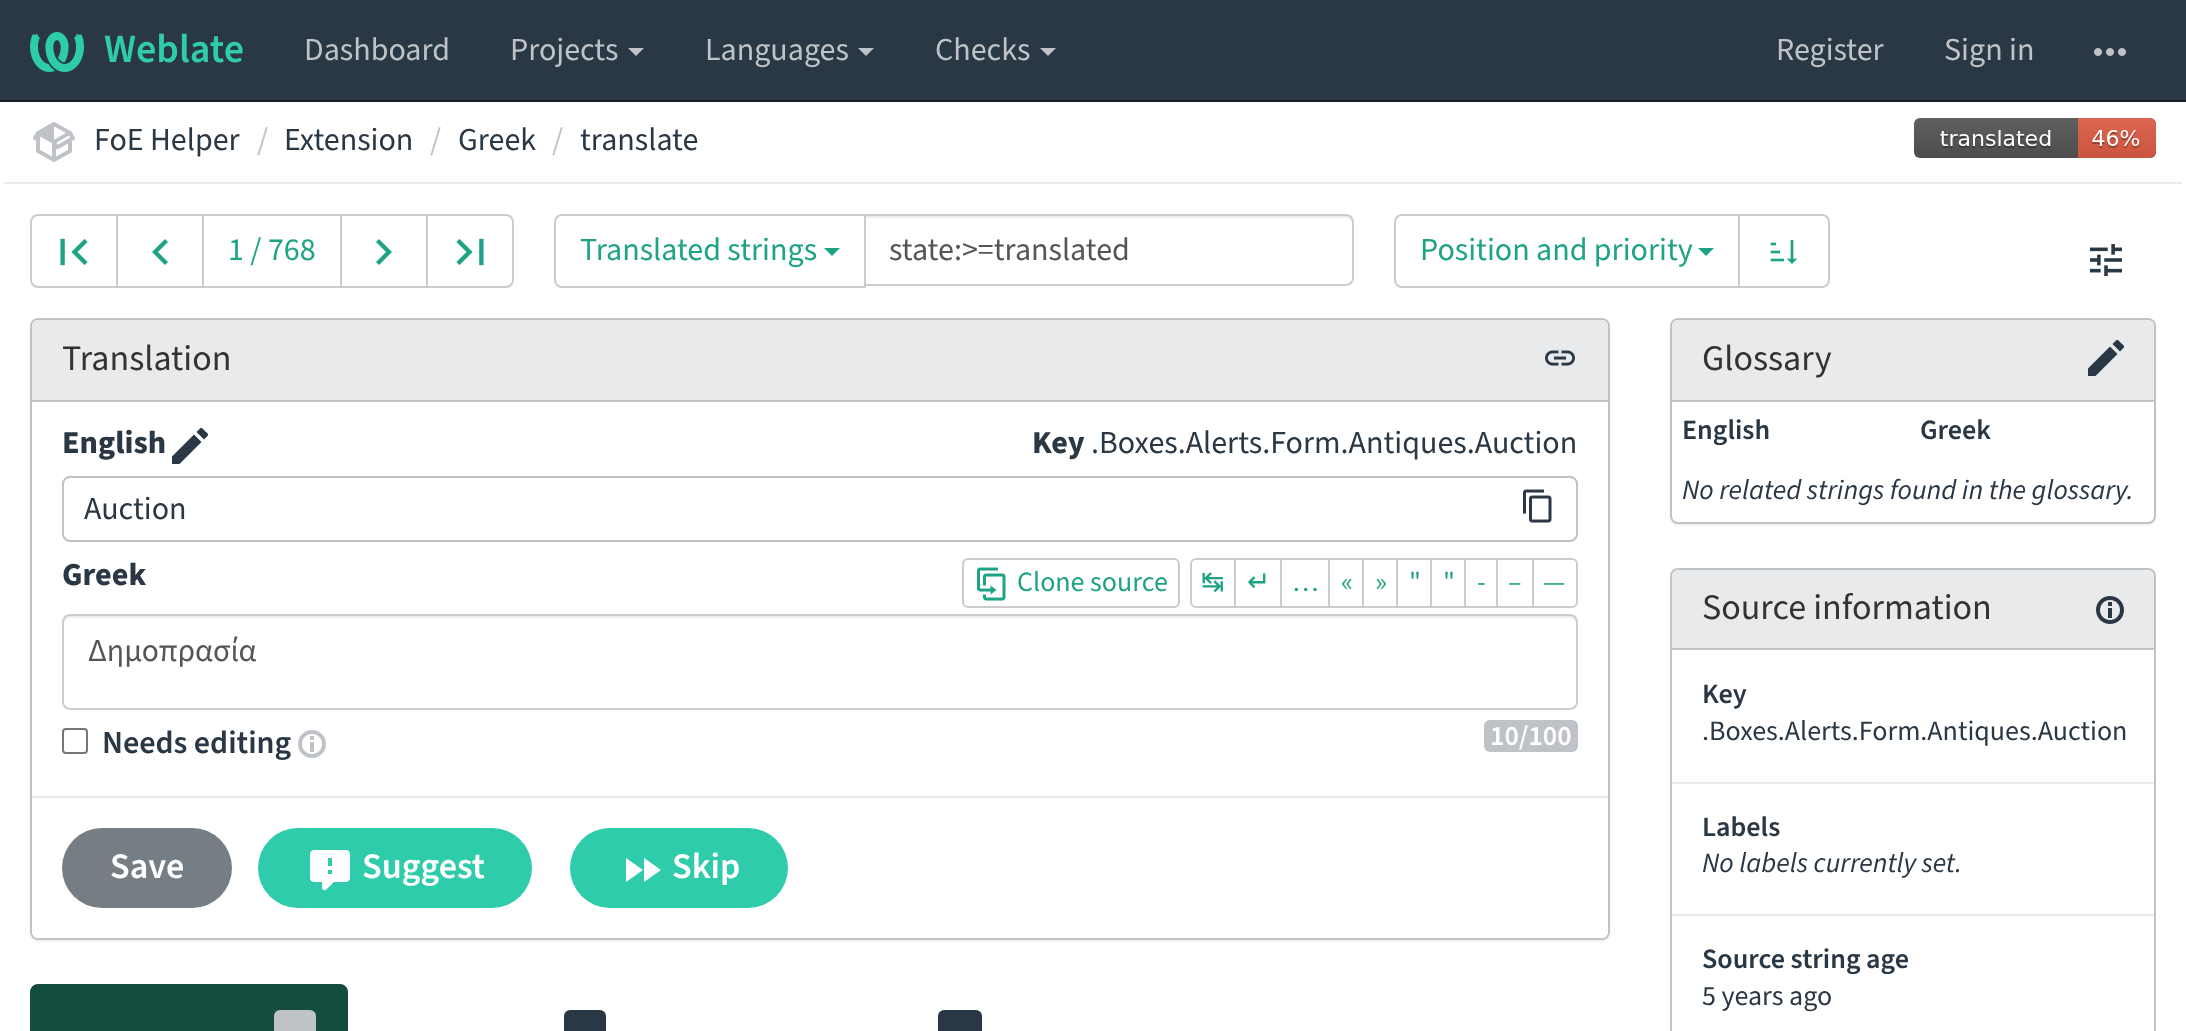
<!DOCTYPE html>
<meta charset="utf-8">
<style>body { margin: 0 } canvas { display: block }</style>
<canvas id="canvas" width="2186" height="1031"></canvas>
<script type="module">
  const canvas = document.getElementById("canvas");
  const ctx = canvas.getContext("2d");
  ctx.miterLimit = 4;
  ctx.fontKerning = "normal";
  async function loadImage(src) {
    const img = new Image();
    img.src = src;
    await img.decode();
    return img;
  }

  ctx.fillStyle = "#ffffff";
  ctx.fillRect(0, 0, 2186, 1031);
  ctx.fillStyle = "#2a3744";
  ctx.fillRect(0, 0, 2186, 100);
  ctx.fillStyle = "#171d24";
  ctx.fillRect(0, 100, 2186, 2);
  ctx.drawImage(await loadImage("img1.png"), 30, 32, 54, 40);
  ctx.font = "600 40px Source Sans Pro";
  ctx.fillStyle = "#2eccaa";
  ctx.fillText("Weblate", 104, 62);
  ctx.font = "32px Source Sans Pro";
  ctx.fillStyle = "#bfc3c7";
  ctx.fillText("Dashboard", 304, 60);
  ctx.fillText("Projects", 510, 60);
  ctx.beginPath();
  ctx.moveTo(628, 48);
  ctx.lineTo(644, 48);
  ctx.lineTo(636, 56);
  ctx.closePath();
  ctx.fill();
  ctx.fillText("Languages", 705, 60);
  ctx.beginPath();
  ctx.moveTo(858, 48);
  ctx.lineTo(874, 48);
  ctx.lineTo(866, 56);
  ctx.closePath();
  ctx.fill();
  ctx.fillText("Checks", 935, 60);
  ctx.beginPath();
  ctx.moveTo(1040, 48);
  ctx.lineTo(1056, 48);
  ctx.lineTo(1048, 56);
  ctx.closePath();
  ctx.fill();
  ctx.fillText("Register", 1776, 60);
  ctx.fillText("Sign in", 1944, 60);
  ctx.drawImage(await loadImage("img2.png"), 2094, 48, 32, 8);
  ctx.fillStyle = "#e9eaec";
  ctx.fillRect(4, 182, 2178, 2);
  ctx.drawImage(await loadImage("img3.png"), 33, 122, 42, 40);
  ctx.fillStyle = "#2a3744";
  ctx.fillText("FoE Helper", 94, 150);
  ctx.fillStyle = "#bfc3c7";
  ctx.fillText("/", 257, 150);
  ctx.fillStyle = "#2a3744";
  ctx.fillText("Extension", 284, 150);
  ctx.fillStyle = "#bfc3c7";
  ctx.fillText("/", 430, 150);
  ctx.fillStyle = "#2a3744";
  ctx.fillText("Greek", 458, 150);
  ctx.fillStyle = "#bfc3c7";
  ctx.fillText("/", 552, 150);
  ctx.fillStyle = "#2a3744";
  ctx.fillText("translate", 580, 150);
  ctx.drawImage(await loadImage("img4.png"), 1914, 118, 242, 40);
  ctx.beginPath();
  ctx.roundRect(31, 215, 86, 72, [7, 0, 0, 7]);
  ctx.strokeStyle = "#cccccc";
  ctx.lineWidth = 2;
  ctx.stroke();
  ctx.drawImage(await loadImage("img5.png"), 60, 238, 28, 28);
  ctx.strokeRect(117, 215, 86, 72);
  ctx.fillStyle = "#1fa385";
  ctx.beginPath();
  ctx.moveTo(168, 262);
  ctx.lineTo(158, 252);
  ctx.lineTo(168, 242);
  ctx.lineTo(165, 239);
  ctx.lineTo(152, 252);
  ctx.lineTo(165, 265);
  ctx.lineTo(168, 262);
  ctx.fill();
  ctx.strokeRect(203, 215, 138, 72);
  ctx.fillText("1 / 768", 228, 260);
  ctx.strokeRect(341, 215, 86, 72);
  ctx.beginPath();
  ctx.moveTo(376, 242);
  ctx.lineTo(386, 252);
  ctx.lineTo(376, 262);
  ctx.lineTo(379, 265);
  ctx.lineTo(392, 252);
  ctx.lineTo(379, 239);
  ctx.lineTo(376, 242);
  ctx.fill();
  ctx.fillStyle = "#ffffff";
  ctx.beginPath();
  ctx.roundRect(427, 215, 86, 72, [0, 7, 7, 0]);
  ctx.fill();
  ctx.stroke();
  ctx.drawImage(await loadImage("img6.png"), 456, 238, 28, 28);
  ctx.beginPath();
  ctx.roundRect(555, 215, 310, 72, [7, 0, 0, 7]);
  ctx.stroke();
  ctx.fillStyle = "#1fa385";
  ctx.fillText("Translated strings", 580, 260);
  ctx.beginPath();
  ctx.moveTo(824, 248);
  ctx.lineTo(840, 248);
  ctx.lineTo(832, 256);
  ctx.closePath();
  ctx.fill();
  ctx.fillStyle = "#ffffff";
  ctx.beginPath();
  ctx.roundRect(864, 214, 490, 72, [0, 8, 8, 0]);
  ctx.fill();
  ctx.fillStyle = "#ececec";
  ctx.beginPath();
  ctx.moveTo(866, 218);
  ctx.lineTo(1346, 218);
  ctx.bezierCurveTo(1349, 218, 1352, 221, 1352, 224);
  ctx.bezierCurveTo(1352, 220, 1351, 216, 1346, 216);
  ctx.lineTo(866, 216);
  ctx.closePath();
  ctx.fill();
  ctx.beginPath();
  ctx.roundRect(865, 215, 488, 70, [0, 7, 7, 0]);
  ctx.stroke();
  ctx.fillStyle = "#555555";
  ctx.fillText("state:>=translated", 889, 260);
  ctx.beginPath();
  ctx.roundRect(1395, 215, 344, 72, [7, 0, 0, 7]);
  ctx.stroke();
  ctx.fillStyle = "#1fa385";
  ctx.fillText("Position and priority", 1420, 260);
  ctx.beginPath();
  ctx.moveTo(1698, 248);
  ctx.lineTo(1714, 248);
  ctx.lineTo(1706, 256);
  ctx.closePath();
  ctx.fill();
  ctx.fillStyle = "#ffffff";
  ctx.beginPath();
  ctx.roundRect(1739, 215, 90, 72, [0, 7, 7, 0]);
  ctx.fill();
  ctx.stroke();
  ctx.drawImage(await loadImage("img7.png"), 1770, 240, 28, 24);
  ctx.drawImage(await loadImage("img8.png"), 2090, 244, 32, 32);
  ctx.fillStyle = "rgba(0, 0, 0, 0.05)";
  ctx.filter = "blur(1px)";
  ctx.beginPath();
  ctx.roundRect(30, 320, 1580, 622, 8);
  ctx.fill();
  ctx.filter = "none";
  ctx.fillStyle = "#ffffff";
  ctx.beginPath();
  ctx.roundRect(31, 319, 1578, 620, 7);
  ctx.fill();
  ctx.strokeStyle = "#bfc3c7";
  ctx.stroke();
  ctx.fillStyle = "#e9eaec";
  ctx.beginPath();
  ctx.roundRect(32, 320, 1576, 82, [6, 6, 0, 0]);
  ctx.fill();
  ctx.fillStyle = "#bfc3c7";
  ctx.fillRect(32, 400, 1576, 2);
  ctx.font = "36px Source Sans Pro";
  ctx.fillStyle = "#333333";
  ctx.fillText("Translation", 62, 370);
  ctx.drawImage(await loadImage("img9.png"), 1545, 350, 30, 16);
  ctx.font = "bold 32px Source Sans Pro";
  ctx.fillStyle = "#2a3744";
  ctx.fillText("English", 62, 453);
  ctx.beginPath();
  ctx.moveTo(172, 456.5);
  ctx.lineTo(172, 464);
  ctx.lineTo(179.5, 464);
  ctx.lineTo(201.5, 442);
  ctx.lineTo(194, 434.5);
  ctx.closePath();
  ctx.moveTo(207.5, 436);
  ctx.bezierCurveTo(209.5, 434, 206, 432, 205, 431);
  ctx.bezierCurveTo(204, 430, 202.5, 427.5, 200.5, 428);
  ctx.lineTo(196.5, 432);
  ctx.lineTo(204, 439.5);
  ctx.closePath();
  ctx.fill();
  ctx.fillText("Key", 1032, 453);
  ctx.font = "32px Source Sans Pro";
  ctx.fillText(".Boxes.Alerts.Form.Antiques.Auction", 1091, 453);
  ctx.beginPath();
  ctx.roundRect(63, 477, 1514, 64, 7);
  ctx.stroke();
  ctx.fillText("Auction", 84, 519);
  ctx.drawImage(await loadImage("img10.png"), 1523, 489, 29, 34);
  ctx.font = "bold 32px Source Sans Pro";
  ctx.fillText("Greek", 62, 585);
  ctx.beginPath();
  ctx.roundRect(963, 559, 216, 48, 5);
  ctx.strokeStyle = "#cccccc";
  ctx.stroke();
  ctx.drawImage(await loadImage("img11.png"), 977, 567, 29, 34);
  ctx.font = "28px Source Sans Pro";
  ctx.fillStyle = "#1fa385";
  ctx.fillText("Clone source", 1017, 591);
  ctx.beginPath();
  ctx.roundRect(1191, 559, 44, 48, [5, 0, 0, 5]);
  ctx.stroke();
  ctx.font = "28px DejaVu Sans";
  ctx.fillText("↹", 1201, 591);
  ctx.strokeRect(1235, 559, 46, 48);
  ctx.fillText("↵", 1247, 591);
  ctx.strokeRect(1281, 559, 48, 48);
  ctx.strokeRect(1329, 559, 34, 48);
  ctx.font = "28px Source Sans Pro";
  ctx.fillText("«", 1341, 591);
  ctx.strokeRect(1363, 559, 34, 48);
  ctx.fillText("»", 1375, 591);
  ctx.strokeRect(1397, 559, 34, 48);
  ctx.fillText("\"", 1409, 591);
  ctx.strokeRect(1431, 559, 34, 48);
  ctx.fillText("\"", 1443, 591);
  ctx.strokeRect(1465, 559, 32, 48);
  ctx.fillText("-", 1477, 591);
  ctx.strokeRect(1497, 559, 36, 48);
  ctx.fillText("–", 1508, 591);
  ctx.fillStyle = "#ffffff";
  ctx.beginPath();
  ctx.roundRect(1533, 559, 44, 48, [0, 5, 5, 0]);
  ctx.fill();
  ctx.stroke();
  ctx.fillStyle = "#1fa385";
  ctx.fillText("—", 1543, 591);
  ctx.fillText("…", 1292, 591);
  ctx.fillStyle = "#ececec";
  ctx.beginPath();
  ctx.moveTo(70, 618);
  ctx.lineTo(1570, 618);
  ctx.bezierCurveTo(1573, 618, 1576, 621, 1576, 624);
  ctx.bezierCurveTo(1576, 620, 1575, 616, 1570, 616);
  ctx.lineTo(70, 616);
  ctx.bezierCurveTo(65, 616, 64, 620, 64, 624);
  ctx.bezierCurveTo(64, 621, 67, 618, 70, 618);
  ctx.closePath();
  ctx.fill();
  ctx.beginPath();
  ctx.roundRect(63, 615, 1514, 94, 7);
  ctx.stroke();
  ctx.font = "32px Source Sans Pro";
  ctx.fillStyle = "#555555";
  ctx.fillText("Δημοπρασία", 88, 661);
  ctx.fillStyle = "#bfc3c7";
  ctx.beginPath();
  ctx.roundRect(1484, 720, 94, 32, 6);
  ctx.fill();
  ctx.font = "600 28px Source Sans Pro";
  ctx.fillStyle = "#ffffff";
  ctx.fillText("10/100", 1490, 745);
  ctx.beginPath();
  ctx.roundRect(63, 729, 24, 24, 3);
  ctx.strokeStyle = "#767676";
  ctx.stroke();
  ctx.font = "600 32px Source Sans Pro";
  ctx.fillStyle = "#2a3744";
  ctx.fillText("Needs editing", 102, 753);
  ctx.drawImage(await loadImage("img12.png"), 298, 730, 28, 28);
  ctx.fillStyle = "#ffffff";
  ctx.beginPath();
  ctx.roundRect(32, 796, 1576, 142, [0, 0, 6, 6]);
  ctx.fill();
  ctx.fillStyle = "#e9eaec";
  ctx.fillRect(32, 796, 1576, 2);
  ctx.fillStyle = "#757d85";
  ctx.beginPath();
  ctx.roundRect(62, 828, 170, 80, 40);
  ctx.fill();
  ctx.font = "600 36px Source Sans Pro";
  ctx.fillStyle = "#ffffff";
  ctx.fillText("Save", 110, 878);
  ctx.fillStyle = "#2eccaa";
  ctx.beginPath();
  ctx.roundRect(258, 828, 274, 80, 40);
  ctx.fill();
  ctx.drawImage(await loadImage("img13.png"), 310, 850, 40, 40);
  ctx.fillStyle = "#ffffff";
  ctx.fillText("Suggest", 362, 878);
  ctx.fillStyle = "#2eccaa";
  ctx.beginPath();
  ctx.roundRect(570, 828, 218, 80, 40);
  ctx.fill();
  ctx.fillStyle = "#ffffff";
  ctx.beginPath();
  ctx.moveTo(644, 858);
  ctx.lineTo(644, 882);
  ctx.lineTo(661, 870);
  ctx.moveTo(626, 882);
  ctx.lineTo(643, 870);
  ctx.lineTo(626, 858);
  ctx.closePath();
  ctx.fill();
  ctx.fillText("Skip", 672, 878);
  ctx.fillStyle = "#144d3f";
  ctx.beginPath();
  ctx.roundRect(31, 985, 316, 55, 7);
  ctx.fill();
  ctx.strokeStyle = "#144d3f";
  ctx.stroke();
  ctx.fillStyle = "#bfc3c7";
  ctx.beginPath();
  ctx.roundRect(274, 1010, 42, 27, 6);
  ctx.fill();
  ctx.fillStyle = "#2a3744";
  ctx.beginPath();
  ctx.roundRect(564, 1010, 42, 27, 6);
  ctx.fill();
  ctx.beginPath();
  ctx.roundRect(938, 1010, 44, 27, 6);
  ctx.fill();
  ctx.fillStyle = "rgba(0, 0, 0, 0.05)";
  ctx.filter = "blur(1px)";
  ctx.beginPath();
  ctx.roundRect(1670, 320, 486, 206, 8);
  ctx.fill();
  ctx.filter = "none";
  ctx.fillStyle = "#ffffff";
  ctx.beginPath();
  ctx.roundRect(1671, 319, 484, 204, 7);
  ctx.fill();
  ctx.strokeStyle = "#bfc3c7";
  ctx.stroke();
  ctx.fillStyle = "#e9eaec";
  ctx.beginPath();
  ctx.roundRect(1672, 320, 482, 82, [6, 6, 0, 0]);
  ctx.fill();
  ctx.fillStyle = "#bfc3c7";
  ctx.fillRect(1672, 400, 482, 2);
  ctx.font = "36px Source Sans Pro";
  ctx.fillStyle = "#333333";
  ctx.fillText("Glossary", 1702, 370);
  ctx.fillStyle = "#2a3744";
  ctx.beginPath();
  ctx.moveTo(2088, 368.5);
  ctx.lineTo(2088, 376);
  ctx.lineTo(2095.5, 376);
  ctx.lineTo(2117.5, 354);
  ctx.lineTo(2110, 346.5);
  ctx.closePath();
  ctx.moveTo(2123.5, 348);
  ctx.bezierCurveTo(2125.5, 346, 2122, 344, 2121, 343);
  ctx.bezierCurveTo(2120, 342, 2118.5, 339.5, 2116.5, 340);
  ctx.lineTo(2112.5, 344);
  ctx.lineTo(2120, 351.5);
  ctx.closePath();
  ctx.fill();
  ctx.font = "600 28px Source Sans Pro";
  ctx.fillText("English", 1682, 439);
  ctx.fillText("Greek", 1920, 439);
  ctx.font = "italic 28px Source Sans Pro";
  ctx.fillText("No related strings found in the glossary.", 1682, 499);
  ctx.beginPath();
  ctx.roundRect(1671, 569, 484, 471, 7);
  ctx.stroke();
  ctx.fillStyle = "#e9eaec";
  ctx.beginPath();
  ctx.roundRect(1672, 570, 482, 80, [6, 6, 0, 0]);
  ctx.fill();
  ctx.fillStyle = "#bfc3c7";
  ctx.fillRect(1672, 648, 482, 2);
  ctx.font = "36px Source Sans Pro";
  ctx.fillStyle = "#333333";
  ctx.fillText("Source information", 1702, 619);
  ctx.drawImage(await loadImage("img14.png"), 2096, 596, 28, 28);
  ctx.fillStyle = "#e9eaec";
  ctx.fillRect(1672, 782, 482, 2);
  ctx.font = "600 28px Source Sans Pro";
  ctx.fillStyle = "#2a3744";
  ctx.fillText("Key", 1702, 703);
  ctx.font = "28px Source Sans Pro";
  ctx.fillText(".Boxes.Alerts.Form.Antiques.Auction", 1702, 740);
  ctx.fillStyle = "#e9eaec";
  ctx.fillRect(1672, 914, 482, 2);
  ctx.font = "600 28px Source Sans Pro";
  ctx.fillStyle = "#2a3744";
  ctx.fillText("Labels", 1702, 836);
  ctx.font = "italic 28px Source Sans Pro";
  ctx.fillText("No labels currently set.", 1702, 872);
  ctx.font = "600 28px Source Sans Pro";
  ctx.fillText("Source string age", 1702, 968);
  ctx.font = "28px Source Sans Pro";
  ctx.fillText("5 years ago", 1702, 1005);
</script>
